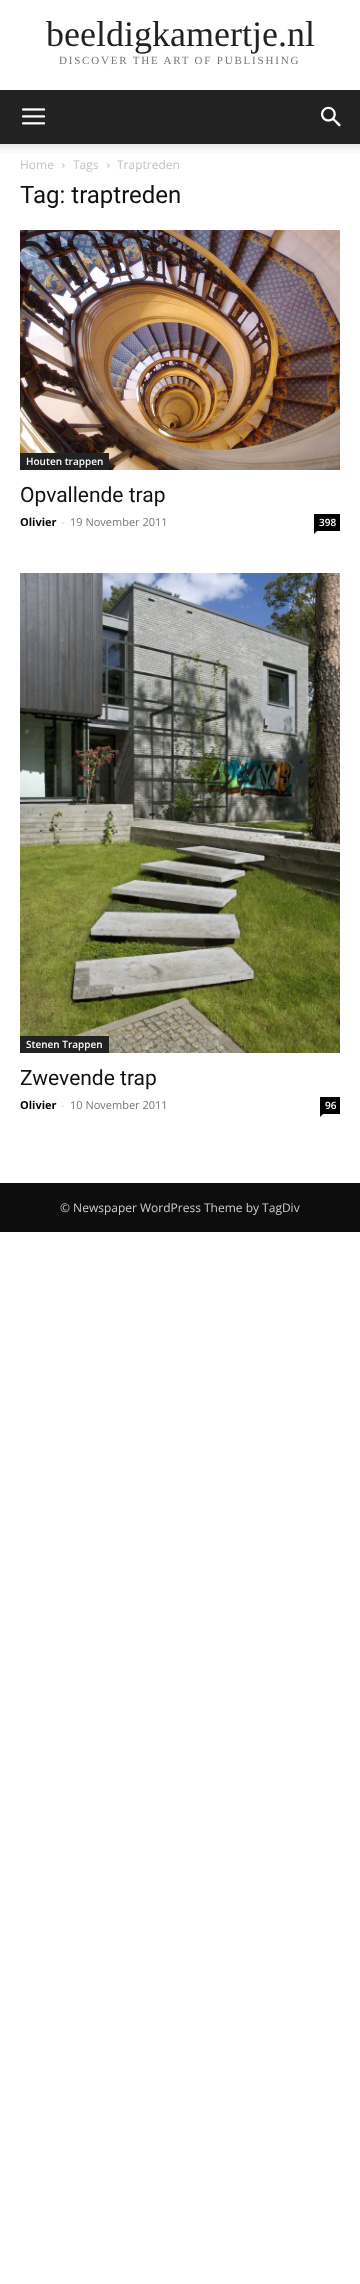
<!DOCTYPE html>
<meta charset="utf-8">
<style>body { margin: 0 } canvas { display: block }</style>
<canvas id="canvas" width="360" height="2284"></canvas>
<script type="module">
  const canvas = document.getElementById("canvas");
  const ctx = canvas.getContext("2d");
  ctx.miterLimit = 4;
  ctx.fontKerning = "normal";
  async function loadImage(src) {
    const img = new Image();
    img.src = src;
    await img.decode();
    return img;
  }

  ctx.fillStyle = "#ffffff";
  ctx.fillRect(0, 0, 360, 2284);
  ctx.font = "36px Liberation Serif";
  ctx.fillStyle = "#222222";
  ctx.fillText("beeldigkamertje.nl", 46, 46);
  ctx.letterSpacing = "1.8px";
  ctx.font = "11px Liberation Serif";
  ctx.fillStyle = "#767676";
  ctx.fillText("DISCOVER THE ART OF PUBLISHING", 59, 64);
  ctx.fillStyle = "#222222";
  ctx.fillRect(0, 90, 360, 54);
  ctx.drawImage(await loadImage("img1.png"), 22, 108, 24, 17);
  ctx.drawImage(await loadImage("img2.png"), 321, 106, 20, 21);
  ctx.drawImage(await loadImage("img3.png"), 0, 144, 360, 9);
  ctx.letterSpacing = "0px";
  ctx.font = "12px Open Sans";
  ctx.fillStyle = "#c3c3c3";
  ctx.fillText("Home", 20, 169);
  ctx.drawImage(await loadImage("img4.png"), 62, 163, 3, 5);
  ctx.fillText("Tags", 73, 169);
  ctx.drawImage(await loadImage("img4.png"), 107, 163, 3, 5);
  ctx.fillText("Traptreden", 117, 169);
  ctx.font = "24px Roboto";
  ctx.fillStyle = "#111111";
  ctx.fillText("Tag: traptreden", 20, 203);
  ctx.drawImage(await loadImage("img5.png"), 20, 230, 320, 240);
  ctx.fillStyle = "#222222";
  ctx.fillRect(20, 453, 89, 17);
  ctx.font = "600 10px Open Sans";
  ctx.fillStyle = "#ffffff";
  ctx.fillText("Houten trappen", 26, 465);
  ctx.font = "21px Roboto";
  ctx.fillStyle = "#111111";
  ctx.fillText("Opvallende trap", 20, 502);
  ctx.font = "bold 11px Open Sans";
  ctx.fillStyle = "#000000";
  ctx.fillText("Olivier", 20, 526);
  ctx.font = "11px Open Sans";
  ctx.fillStyle = "#cccccc";
  ctx.fillText("-", 61, 526);
  ctx.fillStyle = "#767676";
  ctx.fillText("19 November 2011", 70, 526);
  ctx.fillStyle = "#000000";
  ctx.fillRect(314, 514, 26, 17);
  ctx.font = "600 10px Open Sans";
  ctx.fillStyle = "#ffffff";
  ctx.fillText("398", 319, 526);
  ctx.fillStyle = "#000000";
  ctx.beginPath();
  ctx.moveTo(314, 531);
  ctx.lineTo(317, 531);
  ctx.lineTo(314, 534);
  ctx.closePath();
  ctx.fill();
  ctx.drawImage(await loadImage("img6.png"), 20, 573, 320, 480);
  ctx.fillStyle = "#222222";
  ctx.fillRect(20, 1036, 89, 17);
  ctx.fillStyle = "#ffffff";
  ctx.fillText("Stenen Trappen", 26, 1048);
  ctx.font = "21px Roboto";
  ctx.fillStyle = "#111111";
  ctx.fillText("Zwevende trap", 20, 1085);
  ctx.font = "bold 11px Open Sans";
  ctx.fillStyle = "#000000";
  ctx.fillText("Olivier", 20, 1109);
  ctx.font = "11px Open Sans";
  ctx.fillStyle = "#cccccc";
  ctx.fillText("-", 61, 1109);
  ctx.fillStyle = "#767676";
  ctx.fillText("10 November 2011", 70, 1109);
  ctx.fillStyle = "#000000";
  ctx.fillRect(320, 1097, 20, 17);
  ctx.font = "600 10px Open Sans";
  ctx.fillStyle = "#ffffff";
  ctx.fillText("96", 325, 1109);
  ctx.fillStyle = "#000000";
  ctx.beginPath();
  ctx.moveTo(320, 1114);
  ctx.lineTo(323, 1114);
  ctx.lineTo(320, 1117);
  ctx.closePath();
  ctx.fill();
  ctx.fillStyle = "#0d0d0d";
  ctx.fillRect(0, 1183, 360, 49);
  ctx.font = "12px Open Sans";
  ctx.fillStyle = "#cccccc";
  ctx.fillText("© Newspaper WordPress Theme by TagDiv", 60, 1212);
</script>
